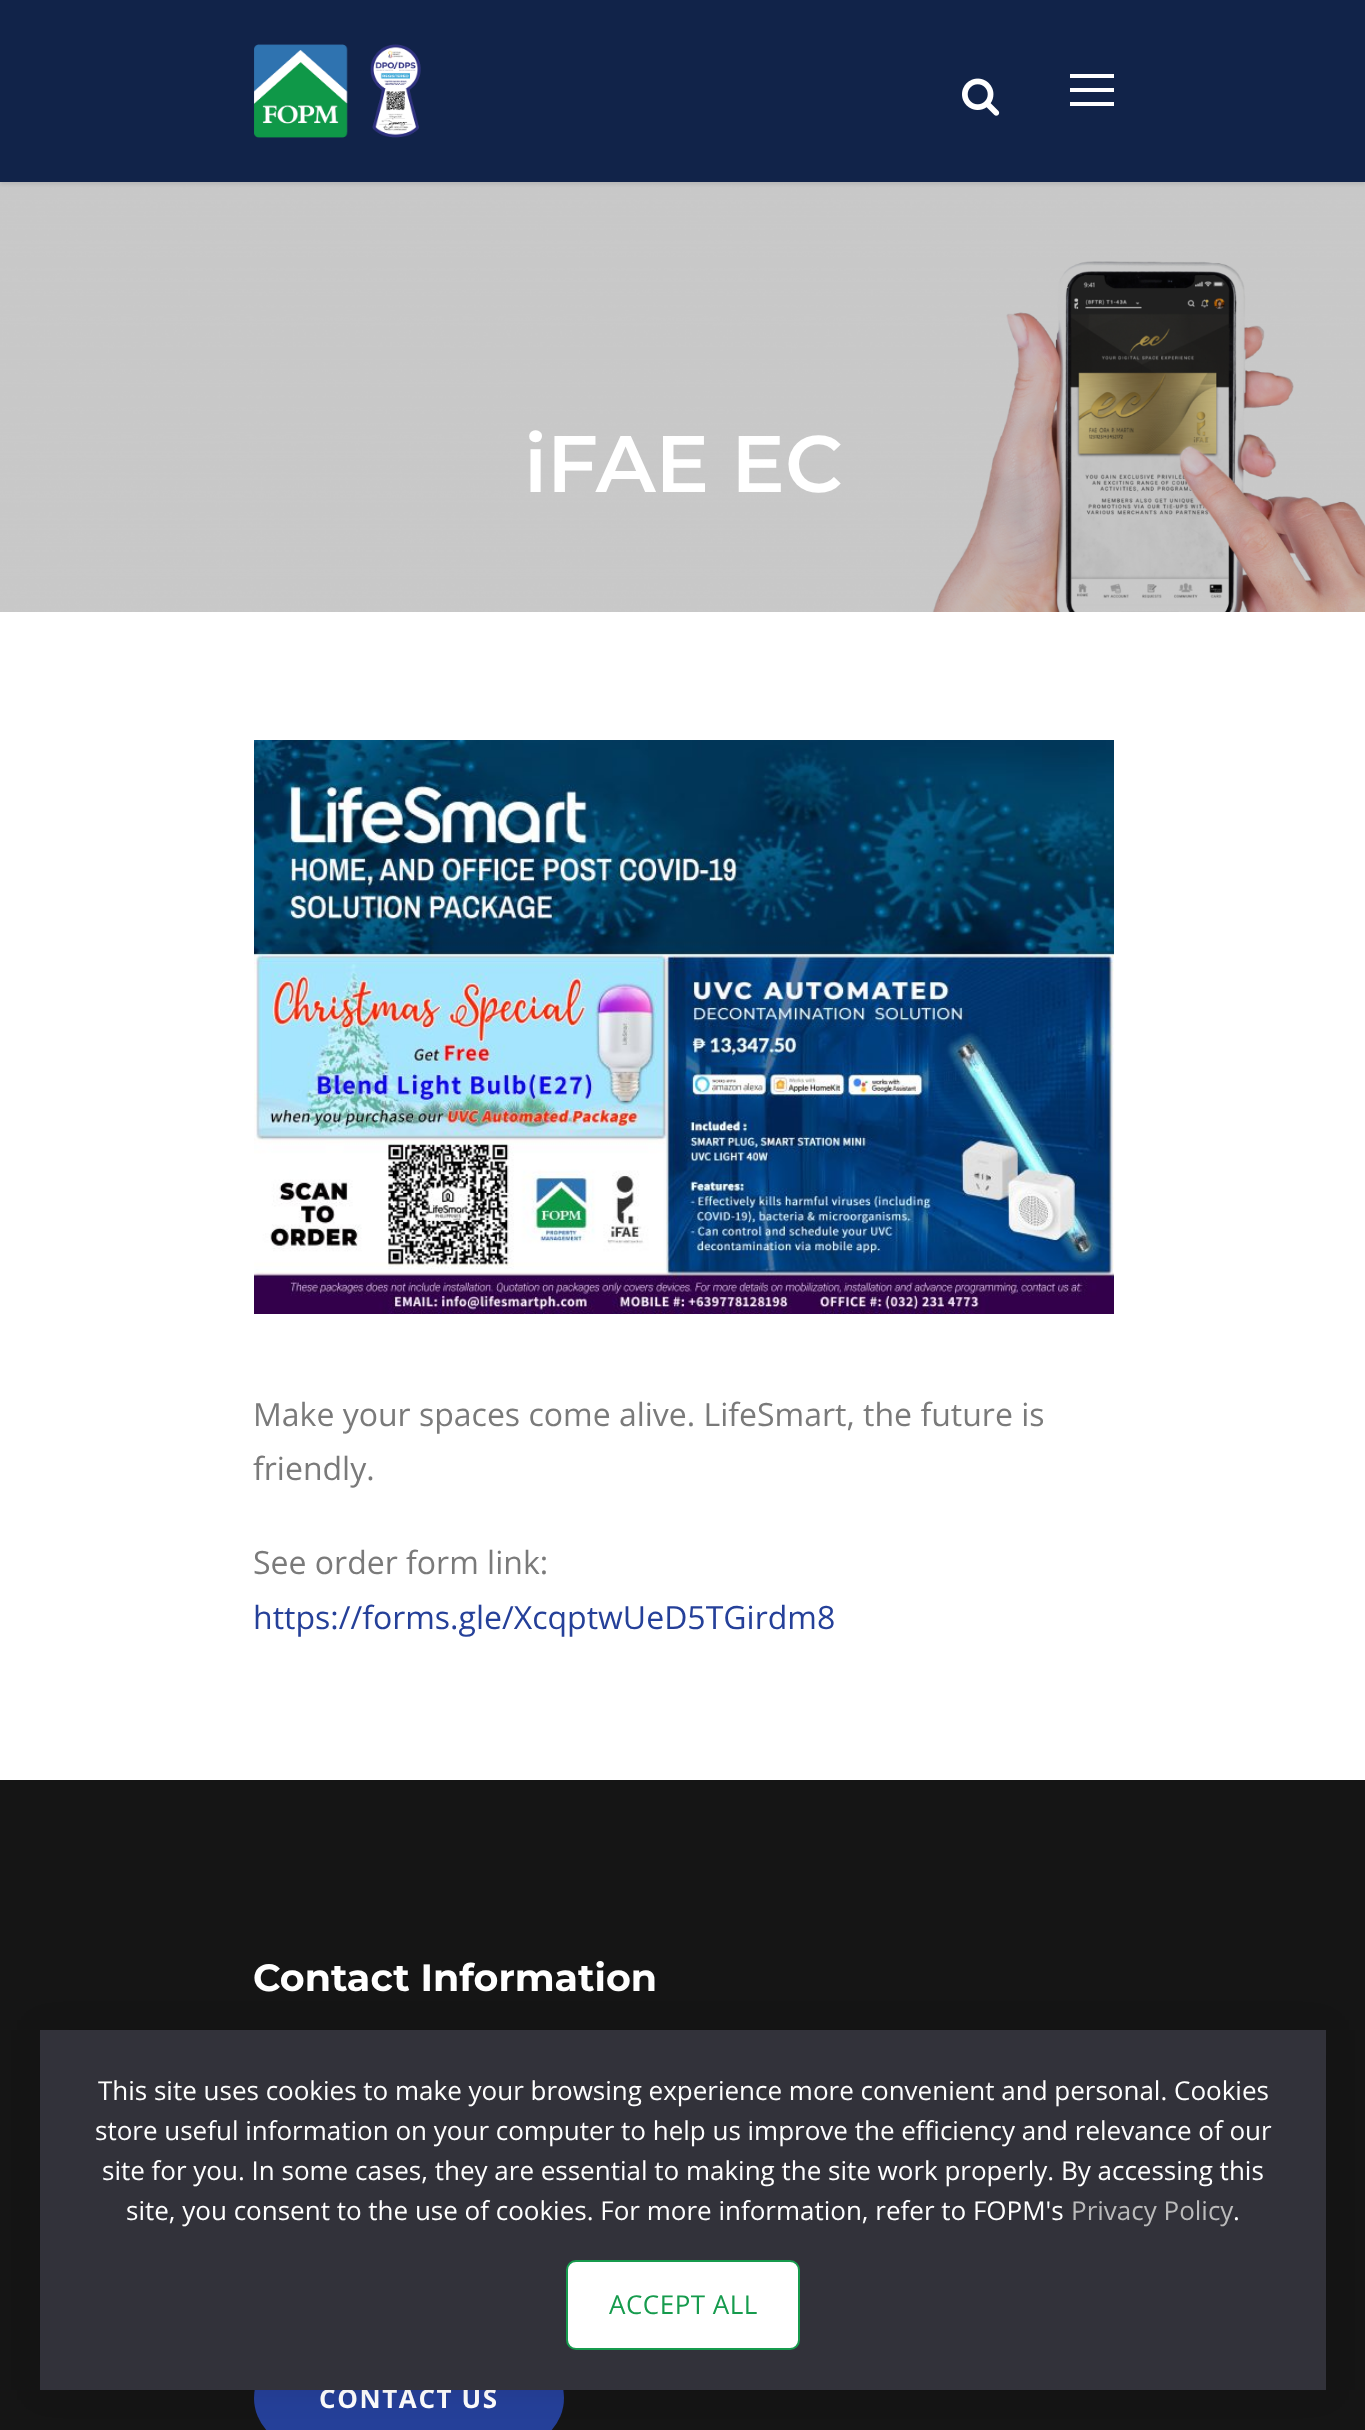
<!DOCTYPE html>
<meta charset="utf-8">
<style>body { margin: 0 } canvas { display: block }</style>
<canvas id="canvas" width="1365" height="2430"></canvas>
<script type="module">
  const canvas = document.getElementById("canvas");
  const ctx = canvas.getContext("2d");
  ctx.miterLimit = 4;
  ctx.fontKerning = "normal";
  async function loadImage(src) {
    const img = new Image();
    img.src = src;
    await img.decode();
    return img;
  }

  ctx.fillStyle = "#ffffff";
  ctx.fillRect(0, 0, 1365, 2430);
  ctx.drawImage(await loadImage("img3.png"), 0, 182, 1365, 430);
  ctx.fillStyle = "rgba(0, 0, 0, 0.1)";
  ctx.filter = "blur(2px)";
  ctx.beginPath();
  ctx.rect(0, 2, 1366, 182);
  ctx.fill();
  ctx.filter = "none";
  ctx.fillStyle = "#112349";
  ctx.fillRect(0, 0, 1365, 182);
  ctx.drawImage(await loadImage("img1.png"), 254, 44, 167, 94);
  ctx.drawImage(await loadImage("img2.png"), 962, 78, 38, 38);
  ctx.fillStyle = "#ffffff";
  ctx.fillRect(1070, 74, 44, 4);
  ctx.fillRect(1070, 88, 44, 4);
  ctx.fillRect(1070, 102, 44, 4);
  ctx.font = "600 80px Montserrat";
  ctx.fillText("iFAE EC", 524, 492);
  ctx.drawImage(await loadImage("img4.png"), 254, 740, 860, 574);
  ctx.font = "32px Open Sans";
  ctx.fillStyle = "#7a7a7a";
  ctx.fillText("Make your spaces come alive. LifeSmart, the future is", 253, 1426);
  ctx.fillText("friendly.", 253, 1480);
  ctx.fillText("See order form link:", 253, 1574);
  ctx.fillStyle = "#254099";
  ctx.fillText("https://forms.gle/XcqptwUeD5TGirdm8", 253, 1629);
  ctx.fillStyle = "#151515";
  ctx.fillRect(0, 1780, 1365, 650);
  ctx.font = "bold 38px Montserrat";
  ctx.fillStyle = "#ffffff";
  ctx.fillText("Contact Information", 253, 1991);
  ctx.fillStyle = "#254099";
  ctx.beginPath();
  ctx.roundRect(254, 2350, 310, 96, 48);
  ctx.fill();
  ctx.letterSpacing = "1.6px";
  ctx.font = "bold 26px Open Sans";
  ctx.fillStyle = "#ffffff";
  ctx.fillText("CONTACT US", 319, 2408);
  ctx.fillStyle = "rgba(0, 0, 0, 0.1)";
  ctx.filter = "blur(15px)";
  ctx.beginPath();
  ctx.rect(40, 2030, 1286, 360);
  ctx.fill();
  ctx.filter = "none";
  ctx.fillStyle = "#32323a";
  ctx.fillRect(40, 2030, 1286, 360);
  ctx.letterSpacing = "0px";
  ctx.font = "26px Open Sans";
  ctx.fillStyle = "#ffffff";
  ctx.fillText("This site uses cookies to make your browsing experience more convenient and personal. Cookies", 98, 2100);
  ctx.fillText("store useful information on your computer to help us improve the efficiency and relevance of our", 95, 2140);
  ctx.fillText("site for you. In some cases, they are essential to making the site work properly. By accessing this", 102, 2180);
  ctx.fillText("site, you consent to the use of cookies. For more information, refer to FOPM's", 126, 2220);
  ctx.fillStyle = "#bbbbbb";
  ctx.fillText("Privacy Policy", 1071, 2220);
  ctx.fillStyle = "#ffffff";
  ctx.fillText(".", 1233, 2220);
  ctx.beginPath();
  ctx.roundRect(567, 2261, 232, 88, 9);
  ctx.fill();
  ctx.strokeStyle = "#169b4d";
  ctx.lineWidth = 2;
  ctx.stroke();
  ctx.letterSpacing = "0.5px";
  ctx.fillStyle = "#169b4d";
  ctx.fillText("ACCEPT ALL", 609, 2314);
</script>
